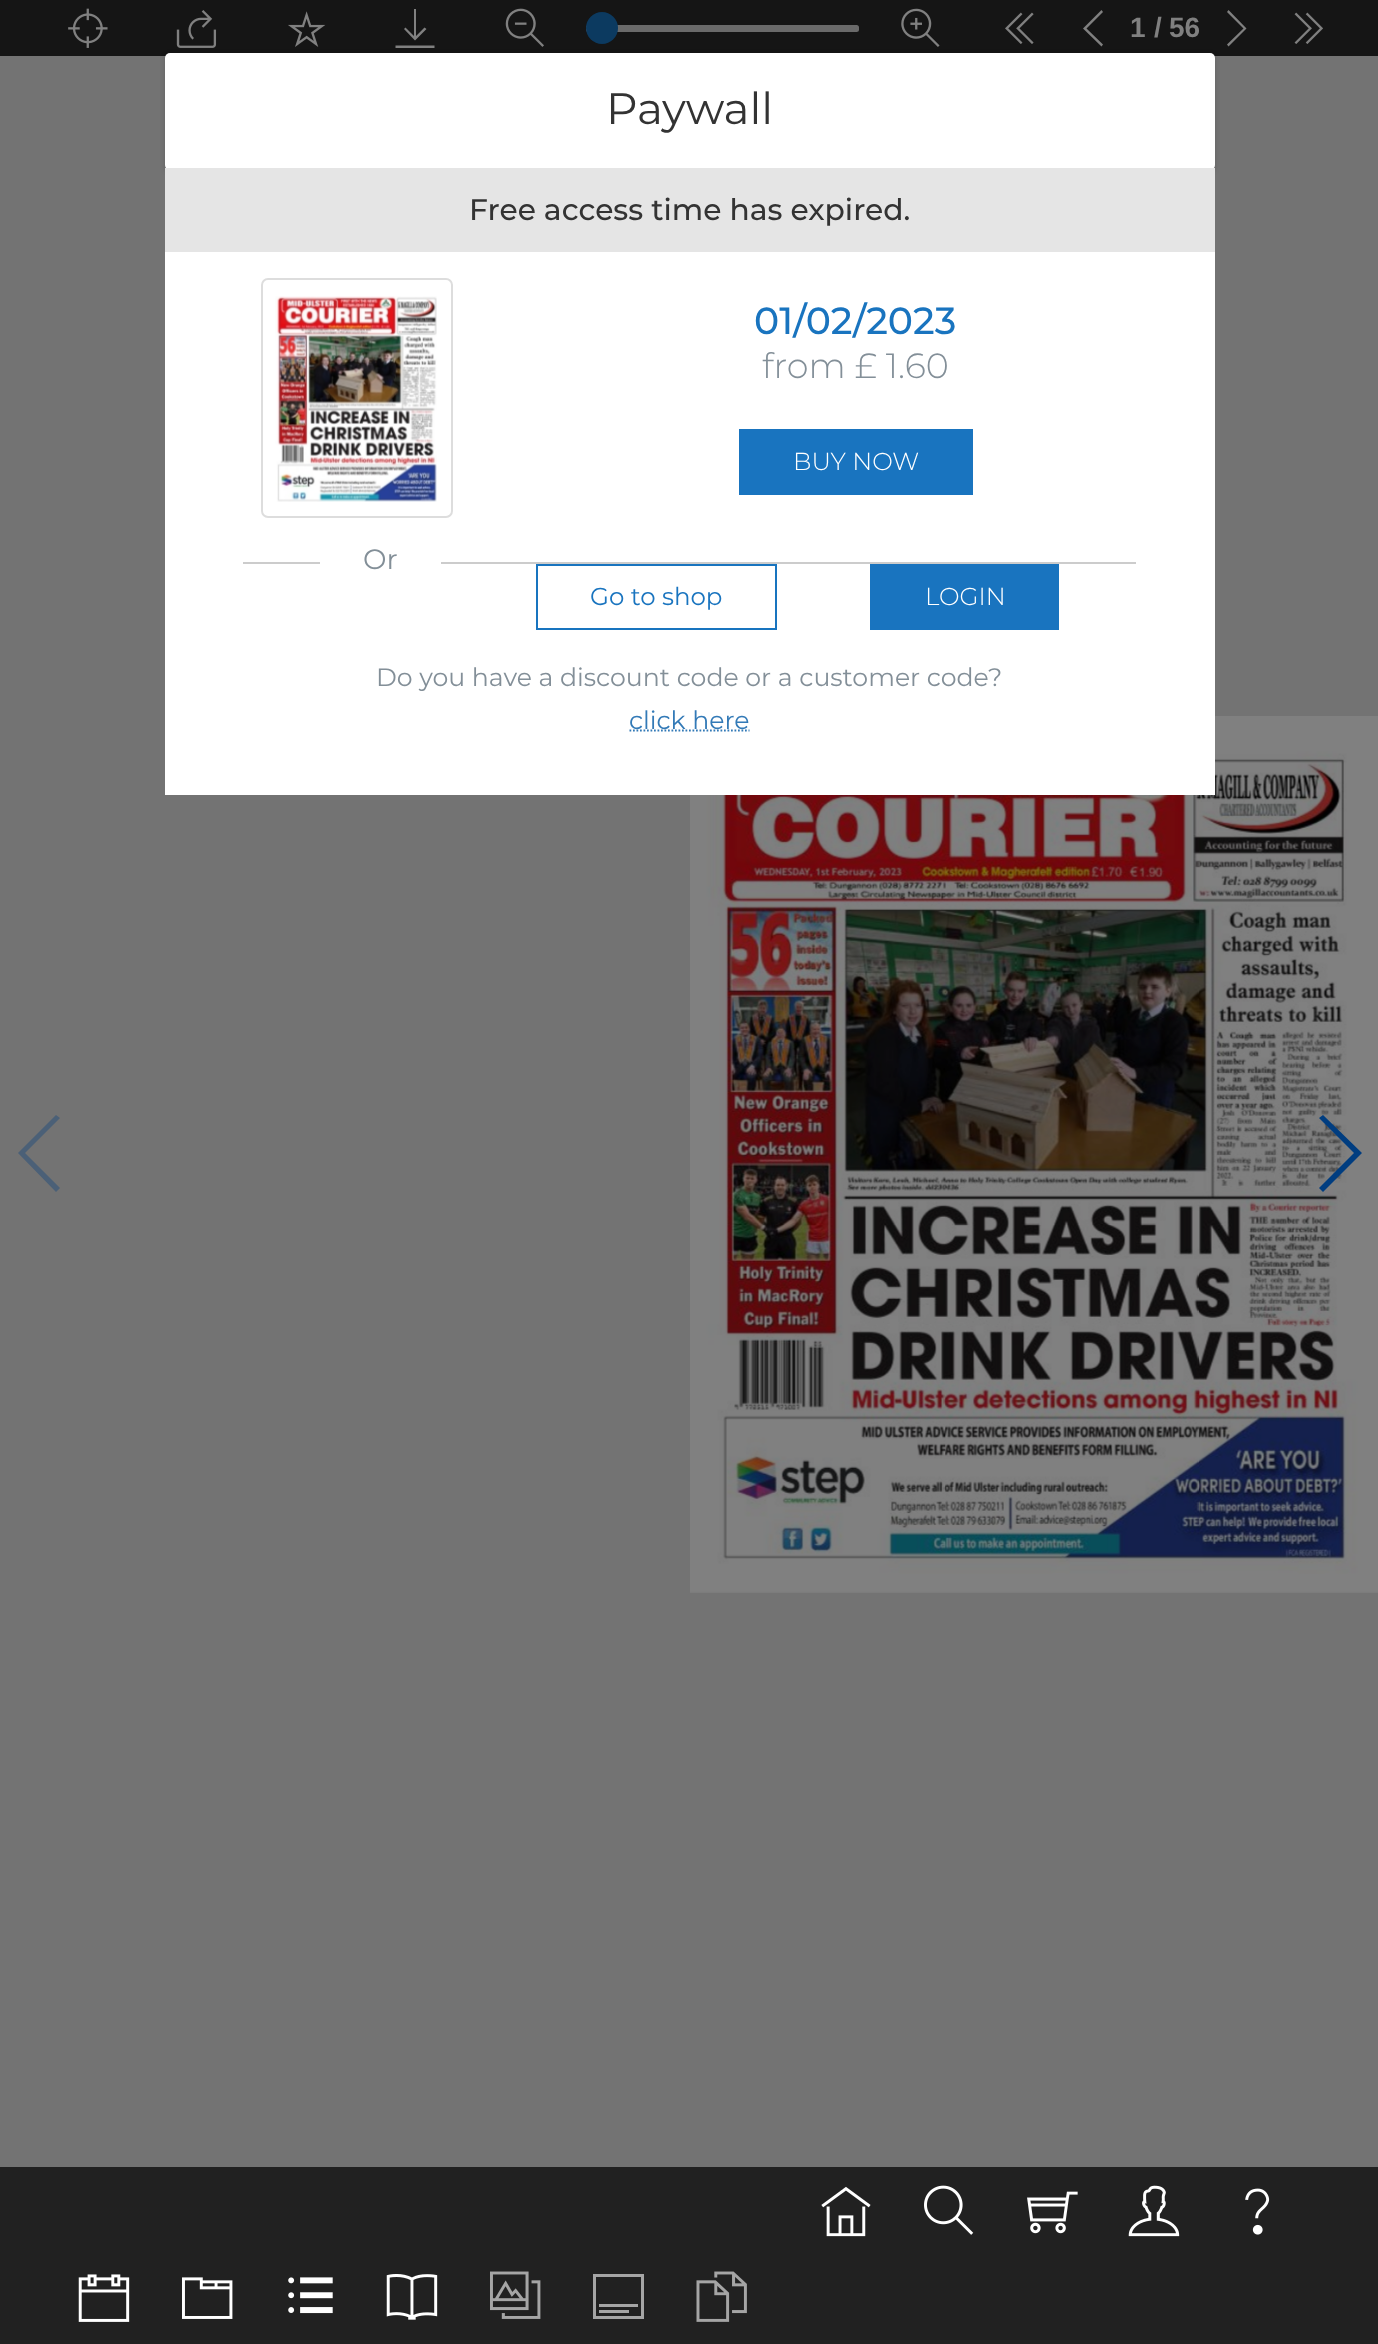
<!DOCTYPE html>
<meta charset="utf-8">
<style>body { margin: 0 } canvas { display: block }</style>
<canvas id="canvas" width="1378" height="2344"></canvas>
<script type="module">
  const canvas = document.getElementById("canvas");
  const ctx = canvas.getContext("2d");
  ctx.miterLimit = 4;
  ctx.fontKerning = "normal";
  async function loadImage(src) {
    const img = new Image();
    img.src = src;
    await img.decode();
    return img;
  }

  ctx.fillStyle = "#737373";
  ctx.fillRect(0, 0, 1378, 2344);
  ctx.fillStyle = "#151515";
  ctx.fillRect(0, 0, 1378, 56);
  ctx.drawImage(await loadImage("img1.png"), 68, 8, 40, 40);
  ctx.drawImage(await loadImage("img2.png"), 176, 10, 41, 38);
  ctx.drawImage(await loadImage("img3.png"), 288, 11, 38, 36);
  ctx.fillStyle = "#808080";
  ctx.beginPath();
  ctx.moveTo(434.5, 45.5);
  ctx.lineTo(434.5, 48);
  ctx.lineTo(395.5, 48);
  ctx.lineTo(395.5, 45.5);
  ctx.closePath();
  ctx.moveTo(426.5, 29);
  ctx.lineTo(424.5, 27.5);
  ctx.lineTo(416, 36);
  ctx.lineTo(416, 9);
  ctx.lineTo(414, 9);
  ctx.lineTo(414, 36);
  ctx.lineTo(405.5, 27.5);
  ctx.lineTo(404, 29);
  ctx.lineTo(415, 40.5);
  ctx.closePath();
  ctx.fill();
  ctx.drawImage(await loadImage("img4.png"), 505, 8, 39, 39);
  ctx.fillStyle = "#6a6a6a";
  ctx.beginPath();
  ctx.roundRect(586, 25, 273, 7, 2.5);
  ctx.fill();
  ctx.fillStyle = "#0c3a60";
  ctx.beginPath();
  ctx.arc(602, 28, 16, 0, Math.PI * 2);
  ctx.fill();
  ctx.drawImage(await loadImage("img5.png"), 901, 8, 39, 39);
  ctx.drawImage(await loadImage("img6.png"), 1005, 12, 29, 32);
  ctx.fillStyle = "#808080";
  ctx.beginPath();
  ctx.moveTo(1086.5, 28.5);
  ctx.lineTo(1103, 44.5);
  ctx.lineTo(1101.5, 46.5);
  ctx.lineTo(1083, 28.5);
  ctx.lineTo(1101.5, 10);
  ctx.lineTo(1103, 12);
  ctx.closePath();
  ctx.fill();
  ctx.font = "bold 28px Liberation Sans";
  ctx.fillText("1", 1130, 37);
  ctx.fillText("/", 1154, 37);
  ctx.fillText("56", 1169, 37);
  ctx.beginPath();
  ctx.moveTo(1246.5, 28.5);
  ctx.lineTo(1228.5, 46.5);
  ctx.lineTo(1227, 44.5);
  ctx.lineTo(1243.5, 28.5);
  ctx.lineTo(1227, 12);
  ctx.lineTo(1228.5, 10);
  ctx.closePath();
  ctx.fill();
  ctx.drawImage(await loadImage("img7.png"), 1294, 12, 29, 32);
  ctx.fillStyle = "rgba(0, 0, 0, 0.15)";
  ctx.filter = "blur(2.5px)";
  ctx.beginPath();
  ctx.roundRect(165, 54, 1050, 118, 5);
  ctx.fill();
  ctx.filter = "none";
  ctx.fillStyle = "#ffffff";
  ctx.beginPath();
  ctx.roundRect(165, 53, 1050, 117, 5);
  ctx.fill();
  ctx.fillStyle = "#e5e5e5";
  ctx.fillRect(165, 168, 1050, 84);
  ctx.font = "44px Montserrat";
  ctx.fillStyle = "#333333";
  ctx.fillText("Paywall", 606, 124);
  ctx.font = "500 29.75px Montserrat";
  ctx.fillText("Free access time has expired.", 469, 220);
  ctx.drawImage(await loadImage("img9.png"), 690, 716, 688, 877);
  ctx.fillStyle = "#ffffff";
  ctx.fillRect(165, 252, 1050, 543);
  ctx.beginPath();
  ctx.roundRect(262, 279, 190, 238, 6);
  ctx.strokeStyle = "#dddddd";
  ctx.lineWidth = 2;
  ctx.stroke();
  ctx.drawImage(await loadImage("img8.png"), 275, 296, 162, 206);
  ctx.font = "500 37.75px Montserrat";
  ctx.fillStyle = "#1974bf";
  ctx.fillText("01/02/2023", 754, 334);
  ctx.font = "300 35px Montserrat";
  ctx.fillStyle = "#838f98";
  ctx.fillText("from £ 1.60", 762, 378);
  ctx.fillStyle = "#1974bf";
  ctx.fillRect(739, 429, 234, 66);
  ctx.font = "300 24.5px Montserrat";
  ctx.fillStyle = "#ffffff";
  ctx.fillText("BUY NOW", 793, 470);
  ctx.fillStyle = "#cccccc";
  ctx.fillRect(243, 562, 893, 2);
  ctx.fillStyle = "#ffffff";
  ctx.fillRect(320, 562, 121, 2);
  ctx.font = "28px Montserrat";
  ctx.fillStyle = "#838f98";
  ctx.fillText("Or", 363, 569);
  ctx.strokeStyle = "#1874bf";
  ctx.strokeRect(537, 565, 239, 64);
  ctx.font = "24.5px Montserrat";
  ctx.fillStyle = "#1974bf";
  ctx.fillText("Go to shop", 590, 605);
  ctx.fillRect(870, 564, 189, 66);
  ctx.font = "300 24.5px Montserrat";
  ctx.fillStyle = "#ffffff";
  ctx.fillText("LOGIN", 925, 605);
  ctx.font = "25.2px Montserrat";
  ctx.fillStyle = "#838f98";
  ctx.fillText("Do you have a discount code or a customer code?", 376, 686);
  ctx.beginPath();
  ctx.moveTo(629.5, 730.5);
  ctx.lineTo(749.5, 730.5);
  ctx.strokeStyle = "#337ab7";
  ctx.lineWidth = 1.8;
  ctx.setLineDash([1.75, 1.75]);
  ctx.stroke();
  ctx.fillStyle = "#337ab7";
  ctx.fillText("click here", 629, 729);
  ctx.fillStyle = "#4b6077";
  ctx.beginPath();
  ctx.moveTo(18, 1153);
  ctx.lineTo(56, 1115);
  ctx.lineTo(60, 1118);
  ctx.lineTo(25, 1153);
  ctx.lineTo(60, 1188);
  ctx.lineTo(56, 1192);
  ctx.closePath();
  ctx.fill();
  ctx.fillStyle = "#003d80";
  ctx.beginPath();
  ctx.moveTo(1362, 1153);
  ctx.lineTo(1323, 1192);
  ctx.lineTo(1319, 1188);
  ctx.lineTo(1354, 1153);
  ctx.lineTo(1319, 1118);
  ctx.lineTo(1323, 1115);
  ctx.closePath();
  ctx.fill();
  ctx.fillStyle = "#212121";
  ctx.fillRect(0, 2167, 1378, 177);
  ctx.drawImage(await loadImage("img10.png"), 821, 2186, 50, 51);
  ctx.drawImage(await loadImage("img11.png"), 924, 2185, 50, 50);
  ctx.drawImage(await loadImage("img12.png"), 1027, 2191, 51, 43);
  ctx.drawImage(await loadImage("img13.png"), 1128, 2185, 52, 52);
  ctx.drawImage(await loadImage("img14.png"), 1245, 2188, 25, 47);
  ctx.drawImage(await loadImage("img15.png"), 78, 2274, 52, 48);
  ctx.drawImage(await loadImage("img16.png"), 182, 2277, 51, 42);
  ctx.drawImage(await loadImage("img17.png"), 288, 2277, 45, 37);
  ctx.drawImage(await loadImage("img18.png"), 386, 2274, 52, 46);
  ctx.drawImage(await loadImage("img19.png"), 490, 2271, 51, 48);
  ctx.fillStyle = "#a5a5a5";
  ctx.beginPath();
  ctx.moveTo(638, 2307);
  ctx.lineTo(599, 2307);
  ctx.lineTo(599, 2304);
  ctx.lineTo(638, 2304);
  ctx.closePath();
  ctx.moveTo(629, 2310);
  ctx.lineTo(599, 2310);
  ctx.lineTo(599, 2313);
  ctx.lineTo(629, 2313);
  ctx.closePath();
  ctx.moveTo(644, 2274);
  ctx.lineTo(644, 2319);
  ctx.lineTo(593, 2319);
  ctx.lineTo(593, 2274);
  ctx.closePath();
  ctx.moveTo(641, 2277);
  ctx.lineTo(596, 2277);
  ctx.lineTo(596, 2316);
  ctx.lineTo(641, 2316);
  ctx.closePath();
  ctx.fill();
  ctx.drawImage(await loadImage("img20.png"), 696, 2271, 51, 51);
</script>
